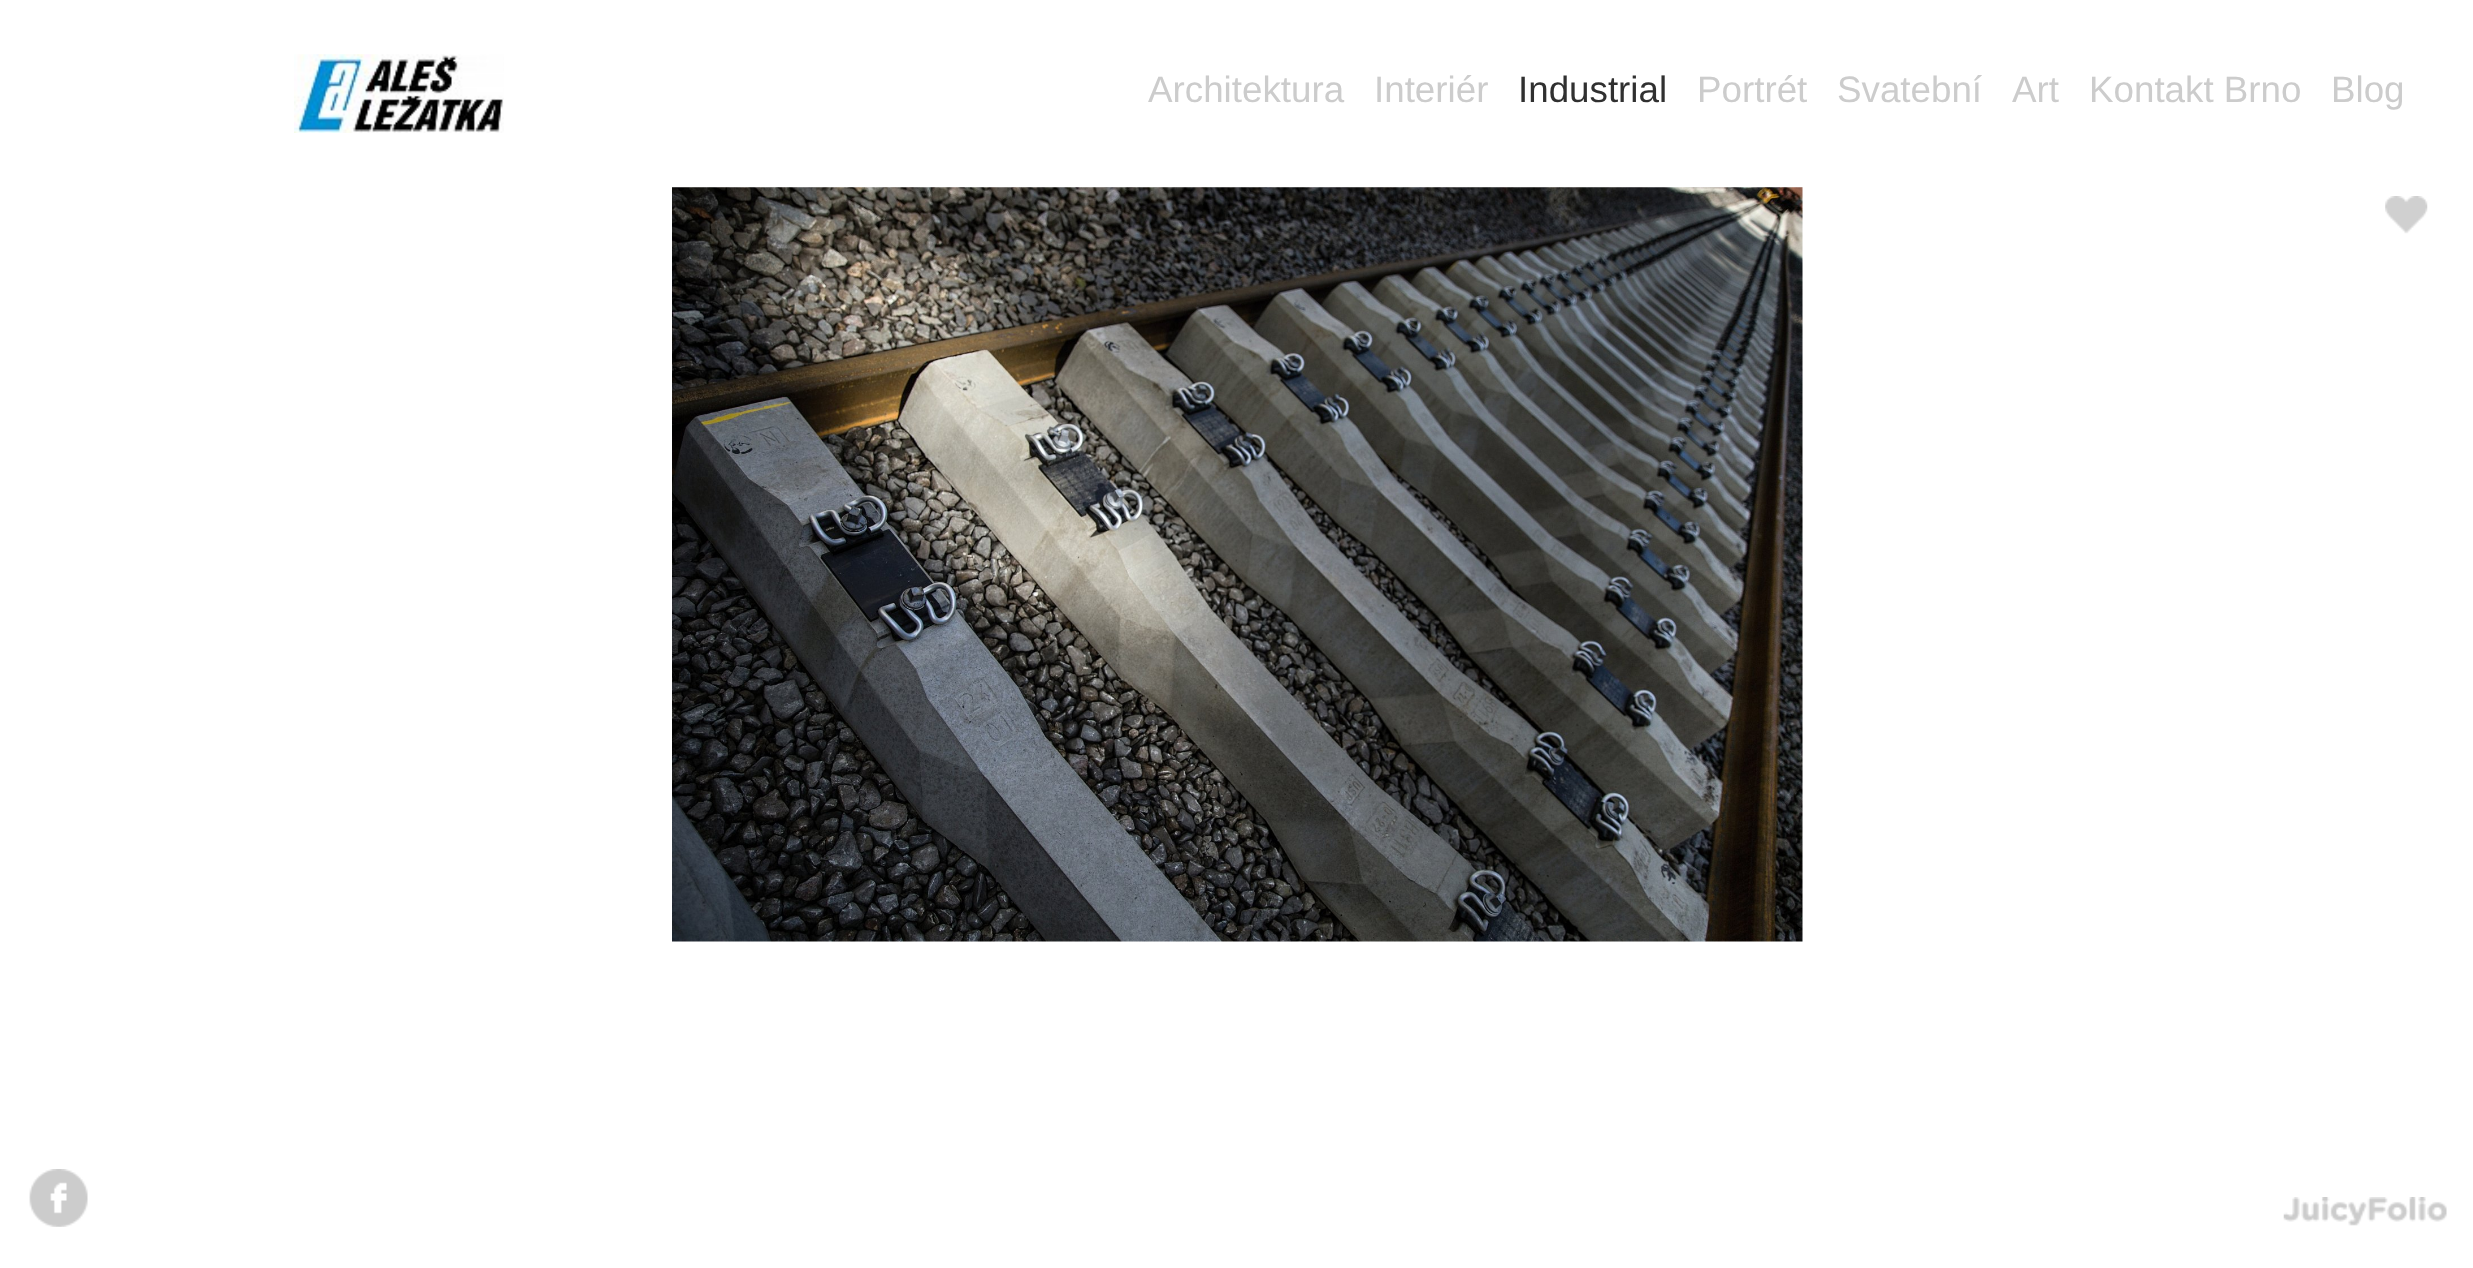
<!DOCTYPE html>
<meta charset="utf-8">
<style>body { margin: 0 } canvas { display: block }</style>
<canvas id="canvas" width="2473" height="1268"></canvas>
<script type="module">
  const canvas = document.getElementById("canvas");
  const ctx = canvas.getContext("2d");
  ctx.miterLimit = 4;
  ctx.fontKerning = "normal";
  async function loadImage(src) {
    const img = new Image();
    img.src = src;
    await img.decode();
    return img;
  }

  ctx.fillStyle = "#ffffff";
  ctx.fillRect(0, 0, 2473, 1268);
  ctx.drawImage(await loadImage("img1.png"), 294, 54, 210, 79);
  ctx.font = "36.75px Liberation Sans";
  ctx.fillStyle = "#cccccc";
  ctx.fillText("Architektura", 1148, 102);
  ctx.fillText("Interiér", 1374, 102);
  ctx.fillStyle = "#303030";
  ctx.fillText("Industrial", 1518, 102);
  ctx.fillStyle = "#cccccc";
  ctx.fillText("Portrét", 1697, 102);
  ctx.fillText("Svatební", 1837, 102);
  ctx.fillText("Art", 2012, 102);
  ctx.fillText("Kontakt Brno", 2089, 102);
  ctx.fillText("Blog", 2331, 102);
  ctx.drawImage(await loadImage("img2.png"), 672, 187, 1131, 755);
  ctx.drawImage(await loadImage("img3.png"), 2385, 196, 43, 38);
  ctx.drawImage(await loadImage("img4.png"), 29, 1169, 59, 58);
  ctx.drawImage(await loadImage("img5.png"), 2283, 1197, 164, 29);
</script>
